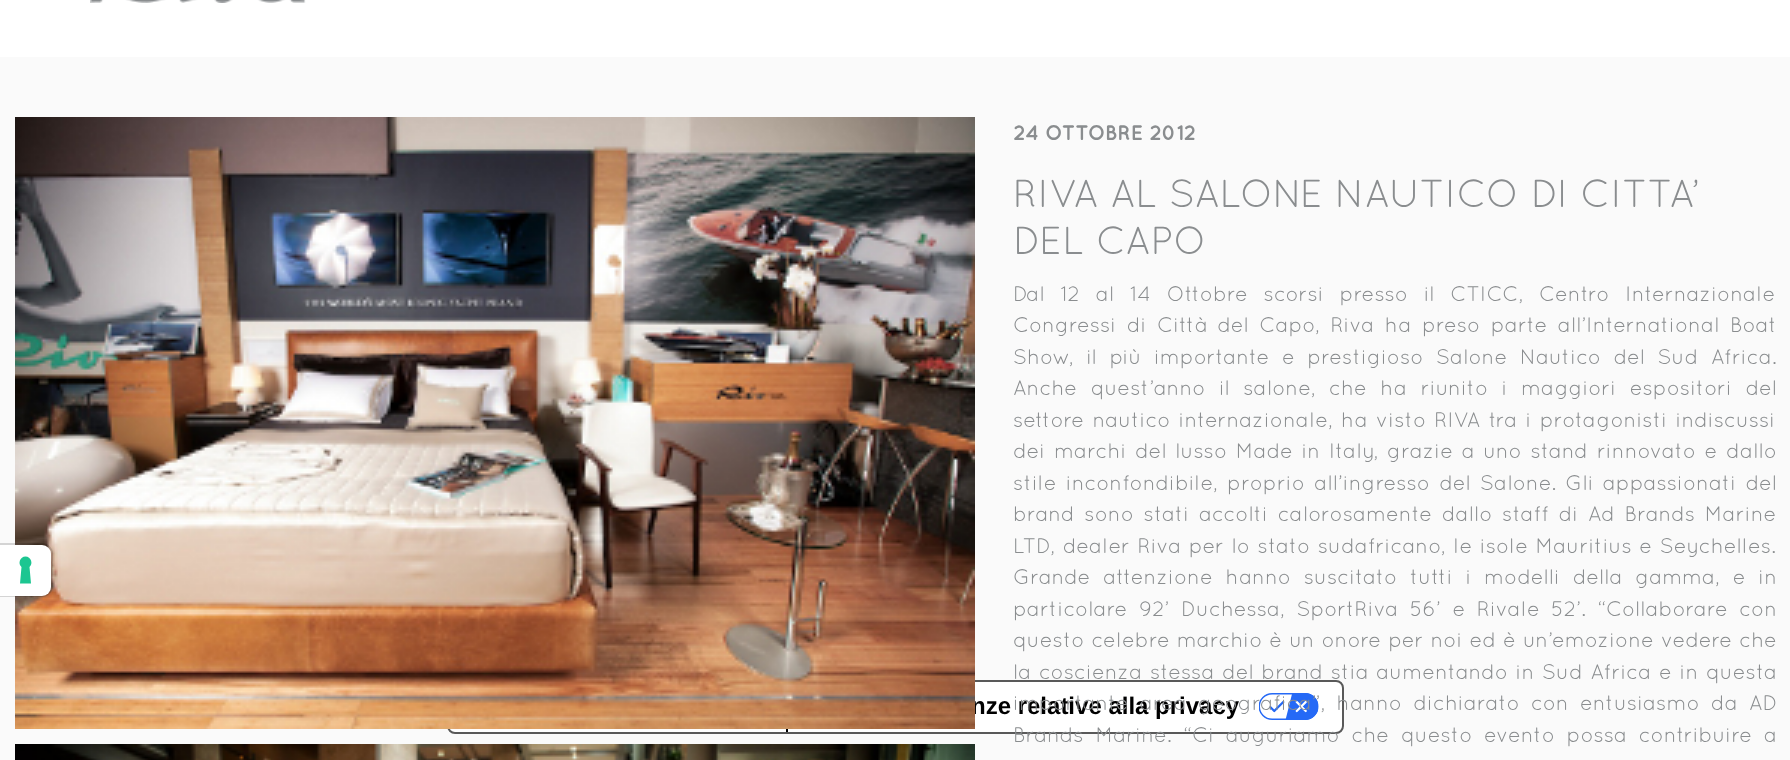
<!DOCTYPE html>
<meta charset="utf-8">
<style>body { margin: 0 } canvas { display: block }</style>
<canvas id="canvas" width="1790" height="760"></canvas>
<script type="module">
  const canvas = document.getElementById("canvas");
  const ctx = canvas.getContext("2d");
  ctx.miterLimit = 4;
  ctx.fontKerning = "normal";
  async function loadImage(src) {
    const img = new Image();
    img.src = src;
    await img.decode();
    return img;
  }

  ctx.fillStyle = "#fafafa";
  ctx.fillRect(0, 0, 1790, 760);
  ctx.fillStyle = "#ffffff";
  ctx.beginPath();
  ctx.roundRect(448, 681, 895, 52, 7);
  ctx.fill();
  ctx.strokeStyle = "#595959";
  ctx.lineWidth = 2;
  ctx.stroke();
  ctx.font = "bold 24px Liberation Sans";
  ctx.fillStyle = "#000000";
  ctx.fillText("nze relative alla privacy", 971, 714);
  ctx.drawImage(await loadImage("img2.png"), 15, 117, 960, 612);
  ctx.beginPath();
  ctx.moveTo(0, 544);
  ctx.lineTo(42, 544);
  ctx.bezierCurveTo(47.5, 544, 52, 548.5, 52, 554);
  ctx.lineTo(52, 586);
  ctx.bezierCurveTo(52, 591.5, 47.5, 596, 42, 596);
  ctx.lineTo(0, 596);
  ctx.closePath();
  ctx.strokeStyle = "rgba(0, 0, 0, 0.15)";
  ctx.stroke();
  ctx.fillStyle = "#ffffff";
  ctx.beginPath();
  ctx.roundRect(0, 545, 51, 51, [0, 9, 9, 0]);
  ctx.fill();
  ctx.fillStyle = "#1cc691";
  ctx.beginPath();
  ctx.moveTo(25.5, 556.5);
  ctx.bezierCurveTo(31, 556.5, 33.5, 563.5, 29.5, 567);
  ctx.lineTo(31, 583.5);
  ctx.lineTo(20, 583.5);
  ctx.lineTo(21.5, 567);
  ctx.bezierCurveTo(17.5, 563.5, 20, 556.5, 25.5, 556.5);
  ctx.closePath();
  ctx.fill("evenodd");
  ctx.fillStyle = "#ffffff";
  ctx.fillRect(0, 0, 1790, 57);
  ctx.drawImage(await loadImage("img1.png"), 90, 0, 216, 3);
  ctx.drawImage(await loadImage("img3.png"), 15, 744, 960, 16);
  ctx.font = "bold 21px Quicksand";
  ctx.fillStyle = "#8a8d8f";
  ctx.fillText("24 OTTOBRE 2012", 1013, 140);
  ctx.font = "39px Quicksand";
  ctx.fillText("RIVA AL SALONE NAUTICO DI CITTA’", 1013, 207);
  ctx.fillText("DEL CAPO", 1013, 254);
  ctx.wordSpacing = "9.5px";
  ctx.font = "21px Quicksand";
  ctx.fillText("Dal 12 al 14 Ottobre scorsi presso il CTICC, Centro Internazionale", 1013, 301);
  ctx.wordSpacing = "4.25px";
  ctx.fillText("Congressi di Città del Capo, Riva ha preso parte all’International Boat", 1013, 332);
  ctx.wordSpacing = "6.25px";
  ctx.fillText("Show, il più importante e prestigioso Salone Nautico del Sud Africa.", 1013, 364);
  ctx.wordSpacing = "7.25px";
  ctx.fillText("Anche quest’anno il salone, che ha riunito i maggiori espositori del", 1013, 395);
  ctx.wordSpacing = "2px";
  ctx.fillText("settore nautico internazionale, ha visto RIVA tra i protagonisti indiscussi", 1013, 427);
  ctx.wordSpacing = "2.4px";
  ctx.fillText("dei marchi del lusso Made in Italy, grazie a uno stand rinnovato e dallo", 1013, 458);
  ctx.wordSpacing = "3px";
  ctx.fillText("stile inconfondibile, proprio all’ingresso del Salone. Gli appassionati del", 1013, 490);
  ctx.wordSpacing = "3.4px";
  ctx.fillText("brand sono stati accolti calorosamente dallo staff di Ad Brands Marine", 1013, 521);
  ctx.wordSpacing = "1.25px";
  ctx.fillText("LTD, dealer Riva per lo stato sudafricano, le isole Mauritius e Seychelles.", 1013, 553);
  ctx.wordSpacing = "6.5px";
  ctx.fillText("Grande attenzione hanno suscitato tutti i modelli della gamma, e in", 1013, 584);
  ctx.wordSpacing = "5.25px";
  ctx.fillText("particolare 92’ Duchessa, SportRiva 56’ e Rivale 52’. “Collaborare con", 1013, 616);
  ctx.wordSpacing = "0.75px";
  ctx.fillText("questo celebre marchio è un onore per noi ed è un’emozione vedere che", 1013, 647);
  ctx.wordSpacing = "1.4px";
  ctx.fillText("la coscienza stessa del brand stia aumentando in Sud Africa e in questa", 1013, 679);
  ctx.drawImage(await loadImage("img4.png"), 1259, 693, 60, 27);
  ctx.wordSpacing = "5px";
  ctx.fillText("importante area geografica”, hanno dichiarato con entusiasmo da AD", 1013, 710);
  ctx.wordSpacing = "5.5px";
  ctx.fillText("Brands Marine. “Ci auguriamo che questo evento possa contribuire a", 1013, 742);
  ctx.fillStyle = "#000000";
  ctx.fillRect(786, 729, 2, 3);
</script>
